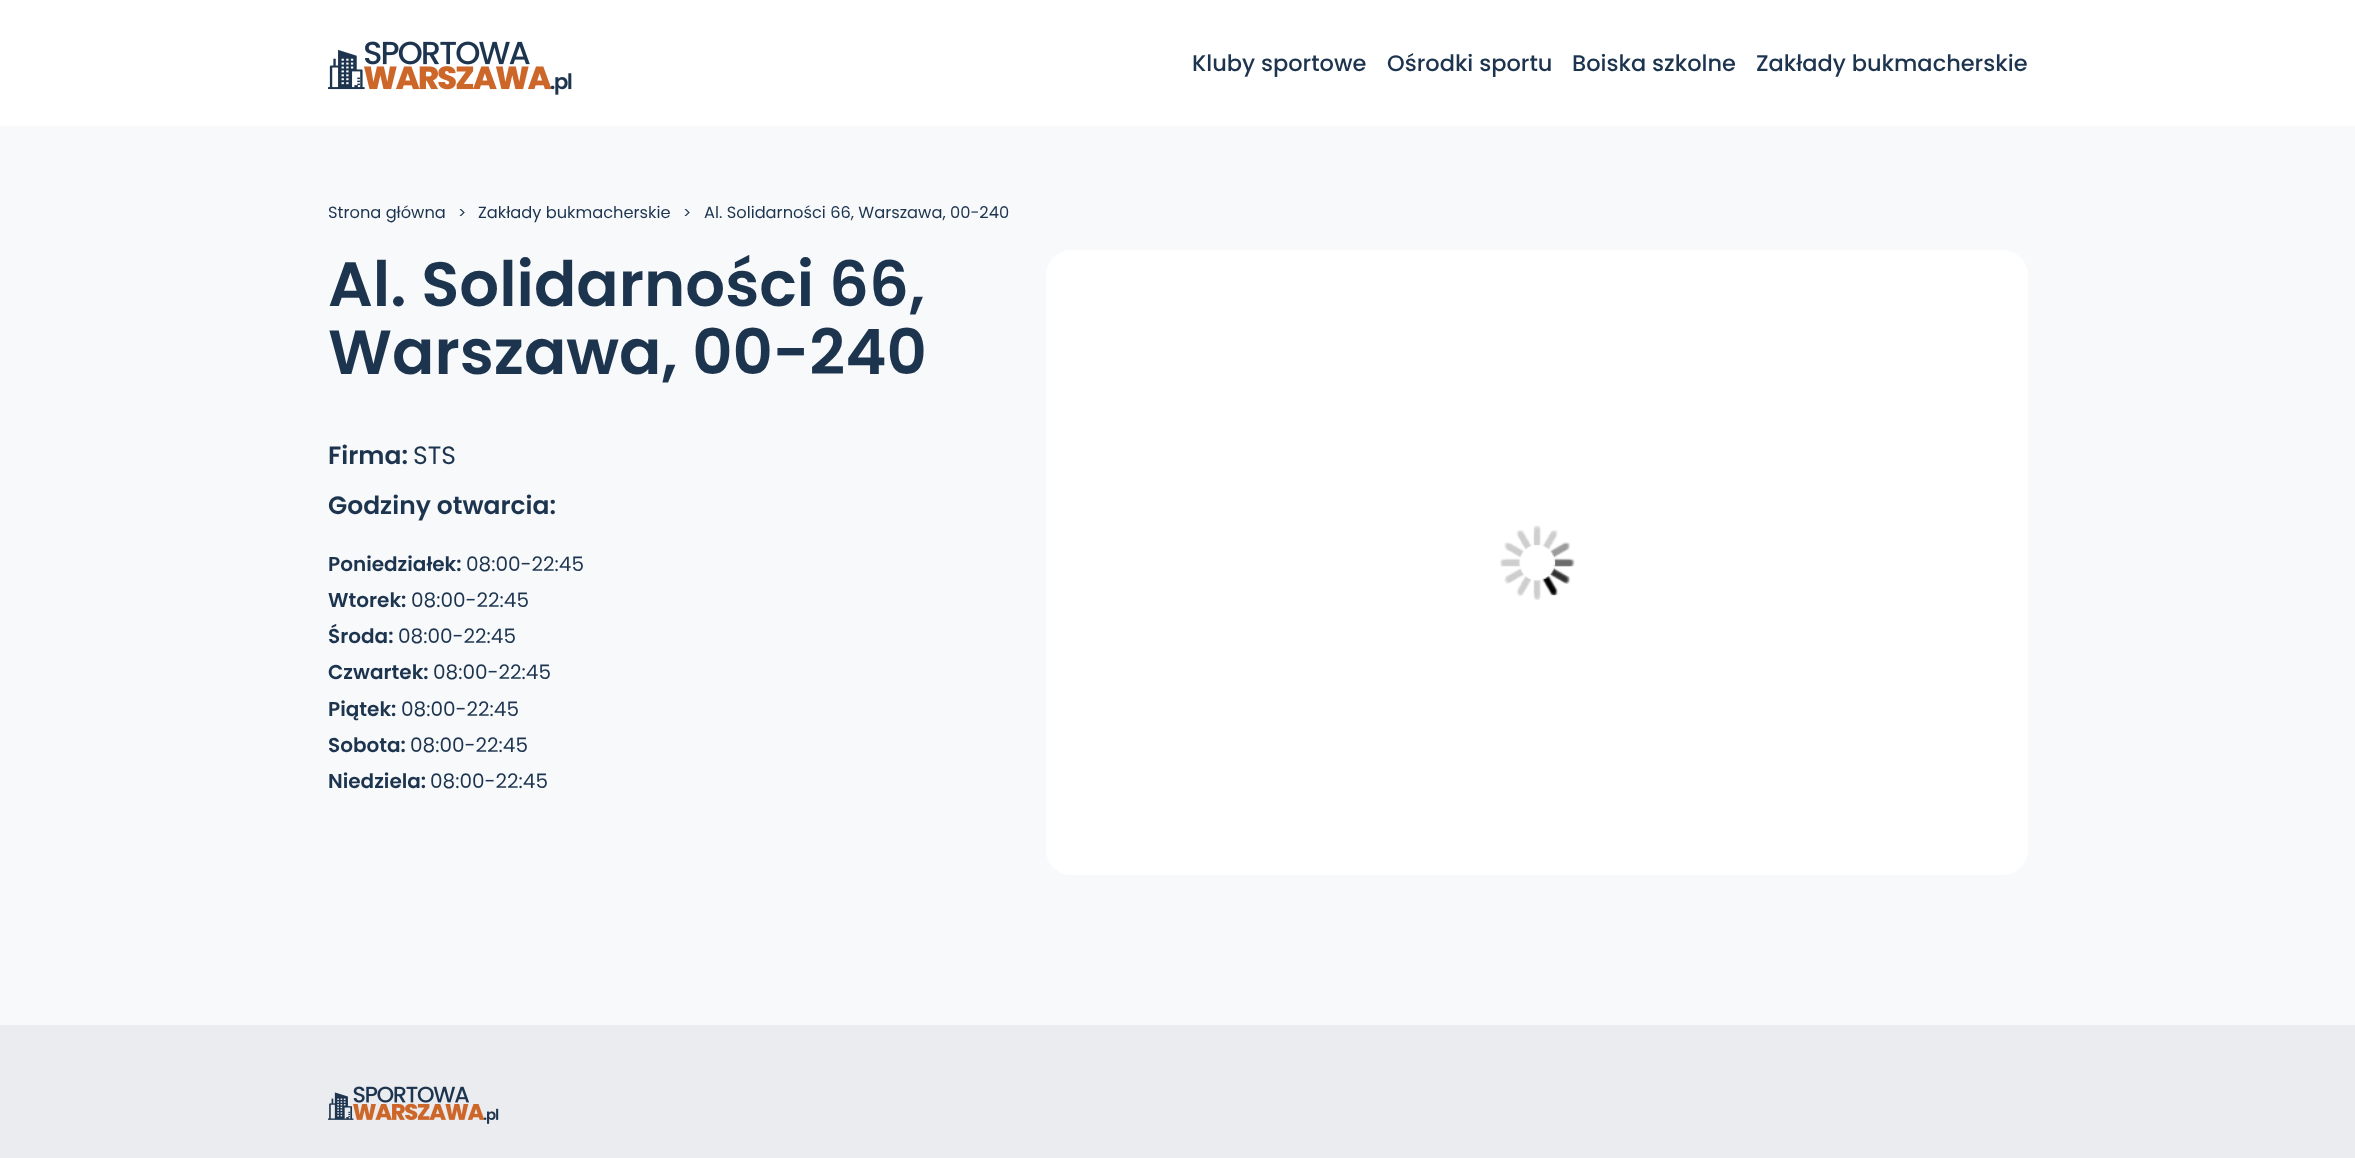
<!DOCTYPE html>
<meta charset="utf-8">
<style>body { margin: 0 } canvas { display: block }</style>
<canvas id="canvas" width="2355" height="1158"></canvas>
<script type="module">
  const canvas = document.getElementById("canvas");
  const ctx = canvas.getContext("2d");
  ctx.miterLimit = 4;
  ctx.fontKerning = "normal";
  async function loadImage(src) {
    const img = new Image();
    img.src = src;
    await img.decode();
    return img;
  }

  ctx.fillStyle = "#f8f9fb";
  ctx.fillRect(0, 0, 2355, 1158);
  ctx.fillStyle = "#ffffff";
  ctx.fillRect(0, 0, 2355, 126);
  ctx.drawImage(await loadImage("img1.png"), 328, 41, 244, 54);
  ctx.font = "500 22.5px Poppins";
  ctx.fillStyle = "#1d344f";
  ctx.fillText("Kluby sportowe", 1192, 71);
  ctx.fillText("Ośrodki sportu", 1387, 71);
  ctx.fillText("Boiska szkolne", 1572, 71);
  ctx.fillText("Zakłady bukmacherskie", 1756, 71);
  ctx.font = "16.25px Poppins";
  ctx.fillText("Strona główna", 328, 218);
  ctx.font = "15px Poppins";
  ctx.fillText(">", 458, 218);
  ctx.font = "16.25px Poppins";
  ctx.fillText("Zakłady bukmacherskie", 478, 218);
  ctx.font = "15px Poppins";
  ctx.fillText(">", 683, 218);
  ctx.font = "16.25px Poppins";
  ctx.fillText("Al. Solidarności 66, Warszawa, 00-240", 704, 218);
  ctx.font = "600 62.5px Poppins";
  ctx.fillText("Al. Solidarności 66,", 328, 306);
  ctx.fillText("Warszawa, 00-240", 328, 374);
  ctx.font = "600 25px Poppins";
  ctx.fillText("Firma:", 328, 464);
  ctx.font = "25px Poppins";
  ctx.fillText("STS", 413, 464);
  ctx.font = "600 25px Poppins";
  ctx.fillText("Godziny otwarcia:", 328, 514);
  ctx.font = "600 20px Poppins";
  ctx.fillText("Poniedziałek:", 328, 571);
  ctx.font = "20px Poppins";
  ctx.fillText("08:00-22:45", 466, 571);
  ctx.font = "600 20px Poppins";
  ctx.fillText("Wtorek:", 328, 607);
  ctx.font = "20px Poppins";
  ctx.fillText("08:00-22:45", 411, 607);
  ctx.font = "600 20px Poppins";
  ctx.fillText("Środa:", 328, 643);
  ctx.font = "20px Poppins";
  ctx.fillText("08:00-22:45", 398, 643);
  ctx.font = "600 20px Poppins";
  ctx.fillText("Czwartek:", 328, 679);
  ctx.font = "20px Poppins";
  ctx.fillText("08:00-22:45", 433, 679);
  ctx.font = "600 20px Poppins";
  ctx.fillText("Piątek:", 328, 716);
  ctx.font = "20px Poppins";
  ctx.fillText("08:00-22:45", 401, 716);
  ctx.font = "600 20px Poppins";
  ctx.fillText("Sobota:", 328, 752);
  ctx.font = "20px Poppins";
  ctx.fillText("08:00-22:45", 410, 752);
  ctx.font = "600 20px Poppins";
  ctx.fillText("Niedziela:", 328, 788);
  ctx.font = "20px Poppins";
  ctx.fillText("08:00-22:45", 430, 788);
  ctx.fillStyle = "#ffffff";
  ctx.beginPath();
  ctx.roundRect(1046, 250, 982, 625, 25);
  ctx.fill();
  ctx.drawImage(await loadImage("img2.png"), 1500, 525, 75, 75);
  ctx.fillStyle = "#ebecef";
  ctx.fillRect(0, 1025, 2355, 133);
  ctx.drawImage(await loadImage("img3.png"), 328, 1086, 171, 38);
</script>
